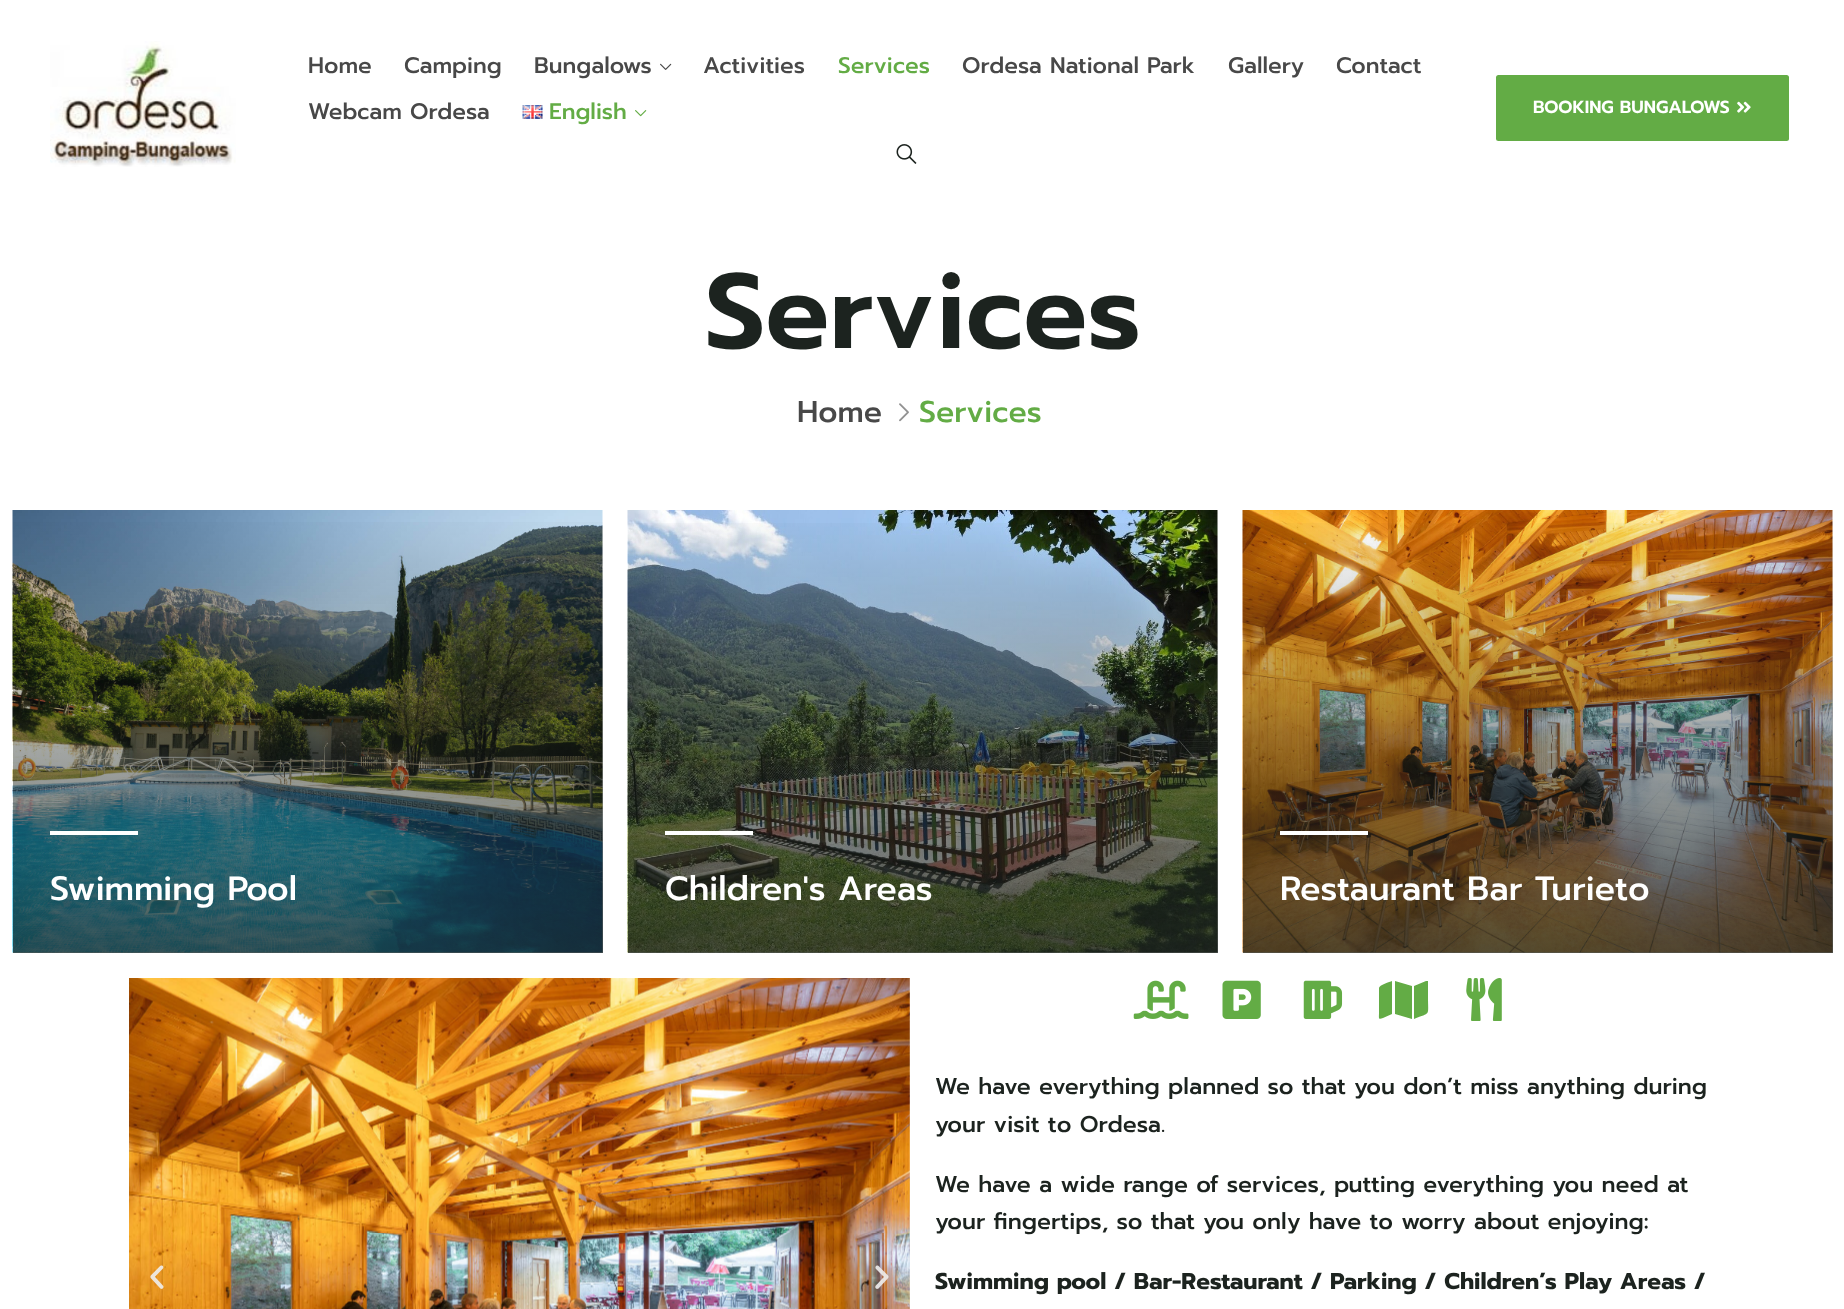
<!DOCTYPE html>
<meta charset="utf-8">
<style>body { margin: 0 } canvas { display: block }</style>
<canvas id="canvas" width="1844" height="1309"></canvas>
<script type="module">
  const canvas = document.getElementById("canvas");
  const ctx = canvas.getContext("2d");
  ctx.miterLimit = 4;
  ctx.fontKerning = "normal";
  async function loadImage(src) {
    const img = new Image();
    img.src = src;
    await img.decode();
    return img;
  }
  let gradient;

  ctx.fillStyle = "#ffffff";
  ctx.fillRect(0, 0, 1844, 1309);
  ctx.drawImage(await loadImage("img1.png"), 50, 41, 186, 126);
  ctx.font = "500 22.5px Prompt";
  ctx.fillStyle = "#484848";
  ctx.fillText("Home", 308, 73);
  ctx.fillText("Camping", 404, 73);
  ctx.fillText("Bungalows", 534, 73);
  ctx.drawImage(await loadImage("img2.png"), 660, 63, 12, 7);
  ctx.fillText("Activities", 703, 73);
  ctx.fillStyle = "#63ac45";
  ctx.fillText("Services", 838, 73);
  ctx.fillStyle = "#484848";
  ctx.fillText("Ordesa National Park", 962, 73);
  ctx.fillText("Gallery", 1228, 73);
  ctx.fillText("Contact", 1336, 73);
  ctx.fillText("Webcam Ordesa", 308, 119);
  ctx.drawImage(await loadImage("img3.png"), 522, 105, 21, 14);
  ctx.fillStyle = "#63ac45";
  ctx.fillText("English", 549, 119);
  ctx.drawImage(await loadImage("img4.png"), 635, 110, 12, 7);
  ctx.drawImage(await loadImage("img5.png"), 896, 144, 21, 20);
  ctx.beginPath();
  ctx.roundRect(1496, 75, 293, 66, 2.5);
  ctx.fill();
  ctx.font = "600 17.5px Prompt";
  ctx.fillStyle = "#ffffff";
  ctx.fillText("BOOKING BUNGALOWS", 1533, 113);
  ctx.drawImage(await loadImage("img6.png"), 1737, 101, 14, 12);
  ctx.font = "600 106.25px Prompt";
  ctx.fillStyle = "#1c231f";
  ctx.fillText("Services", 705, 348);
  ctx.font = "500 30px Prompt";
  ctx.fillStyle = "#484848";
  ctx.fillText("Home", 797, 422);
  ctx.drawImage(await loadImage("img7.png"), 899, 403, 10, 19);
  ctx.fillStyle = "#63ac45";
  ctx.fillText("Services", 919, 422);
  ctx.drawImage(await loadImage("img8.png"), 12, 510, 591, 443);
  gradient = ctx.createLinearGradient(307, 510, 308, 953);
  gradient.addColorStop(0, "rgba(28, 35, 31, 0)");
  gradient.addColorStop(1, "rgba(28, 35, 31, 0.75)");
  ctx.fillStyle = gradient;
  ctx.fillRect(13, 522, 590, 431);
  ctx.fillStyle = "#ffffff";
  ctx.fillRect(50, 831, 88, 4);
  ctx.font = "500 33.75px Prompt";
  ctx.fillText("Swimming Pool", 50, 900);
  ctx.drawImage(await loadImage("img9.png"), 627, 510, 591, 443);
  gradient = ctx.createLinearGradient(923, 510, 923, 953);
  gradient.addColorStop(0, "rgba(28, 35, 31, 0)");
  gradient.addColorStop(1, "rgba(28, 35, 31, 0.75)");
  ctx.fillStyle = gradient;
  ctx.fillRect(628, 523, 590, 430);
  ctx.fillStyle = "#ffffff";
  ctx.fillRect(665, 831, 88, 4);
  ctx.fillText("Children's Areas", 665, 900);
  ctx.drawImage(await loadImage("img10.png"), 1242, 510, 591, 443);
  gradient = ctx.createLinearGradient(1538, 510, 1538, 953);
  gradient.addColorStop(0, "rgba(28, 35, 31, 0)");
  gradient.addColorStop(1, "rgba(28, 35, 31, 0.75)");
  ctx.fillStyle = gradient;
  ctx.fillRect(1243, 523, 590, 430);
  ctx.fillStyle = "#ffffff";
  ctx.fillRect(1280, 831, 88, 4);
  ctx.fillText("Restaurant Bar Turieto", 1280, 900);
  ctx.drawImage(await loadImage("img11.png"), 129, 978, 781, 331);
  ctx.drawImage(await loadImage("img12.png"), 150, 1265, 14, 24);
  ctx.drawImage(await loadImage("img13.png"), 875, 1265, 14, 24);
  ctx.drawImage(await loadImage("img14.png"), 1133, 980, 56, 39);
  ctx.drawImage(await loadImage("img15.png"), 1222, 980, 39, 39);
  ctx.drawImage(await loadImage("img16.png"), 1303, 980, 40, 39);
  ctx.fillStyle = "#63ac45";
  ctx.beginPath();
  ctx.moveTo(1379, 988);
  ctx.bezierCurveTo(1379, 985, 1390, 982, 1392, 981);
  ctx.lineTo(1392, 1014);
  ctx.lineTo(1383, 1018);
  ctx.bezierCurveTo(1378, 1020, 1379, 1018, 1379, 1013);
  ctx.closePath();
  ctx.moveTo(1395, 1014);
  ctx.lineTo(1395, 981);
  ctx.lineTo(1412, 986);
  ctx.lineTo(1412, 1019);
  ctx.closePath();
  ctx.moveTo(1426, 981);
  ctx.lineTo(1428, 981);
  ctx.lineTo(1428, 997);
  ctx.bezierCurveTo(1428, 1017, 1431, 1012, 1414, 1019);
  ctx.lineTo(1414, 986);
  ctx.closePath();
  ctx.fill();
  ctx.drawImage(await loadImage("img17.png"), 1466, 978, 36, 43);
  ctx.font = "500 22.95px Prompt";
  ctx.fillStyle = "#1c231f";
  ctx.fillText("We have everything planned so that you don’t miss anything during", 935, 1094);
  ctx.fillText("your visit to Ordesa.", 935, 1132);
  ctx.fillText("We have a wide range of services, putting everything you need at", 935, 1192);
  ctx.fillText("your fingertips, so that you only have to worry about enjoying:", 935, 1229);
  ctx.font = "bold 22.95px Prompt";
  ctx.fillText("Swimming pool / Bar-Restaurant / Parking / Children’s Play Areas /", 935, 1289);
</script>
